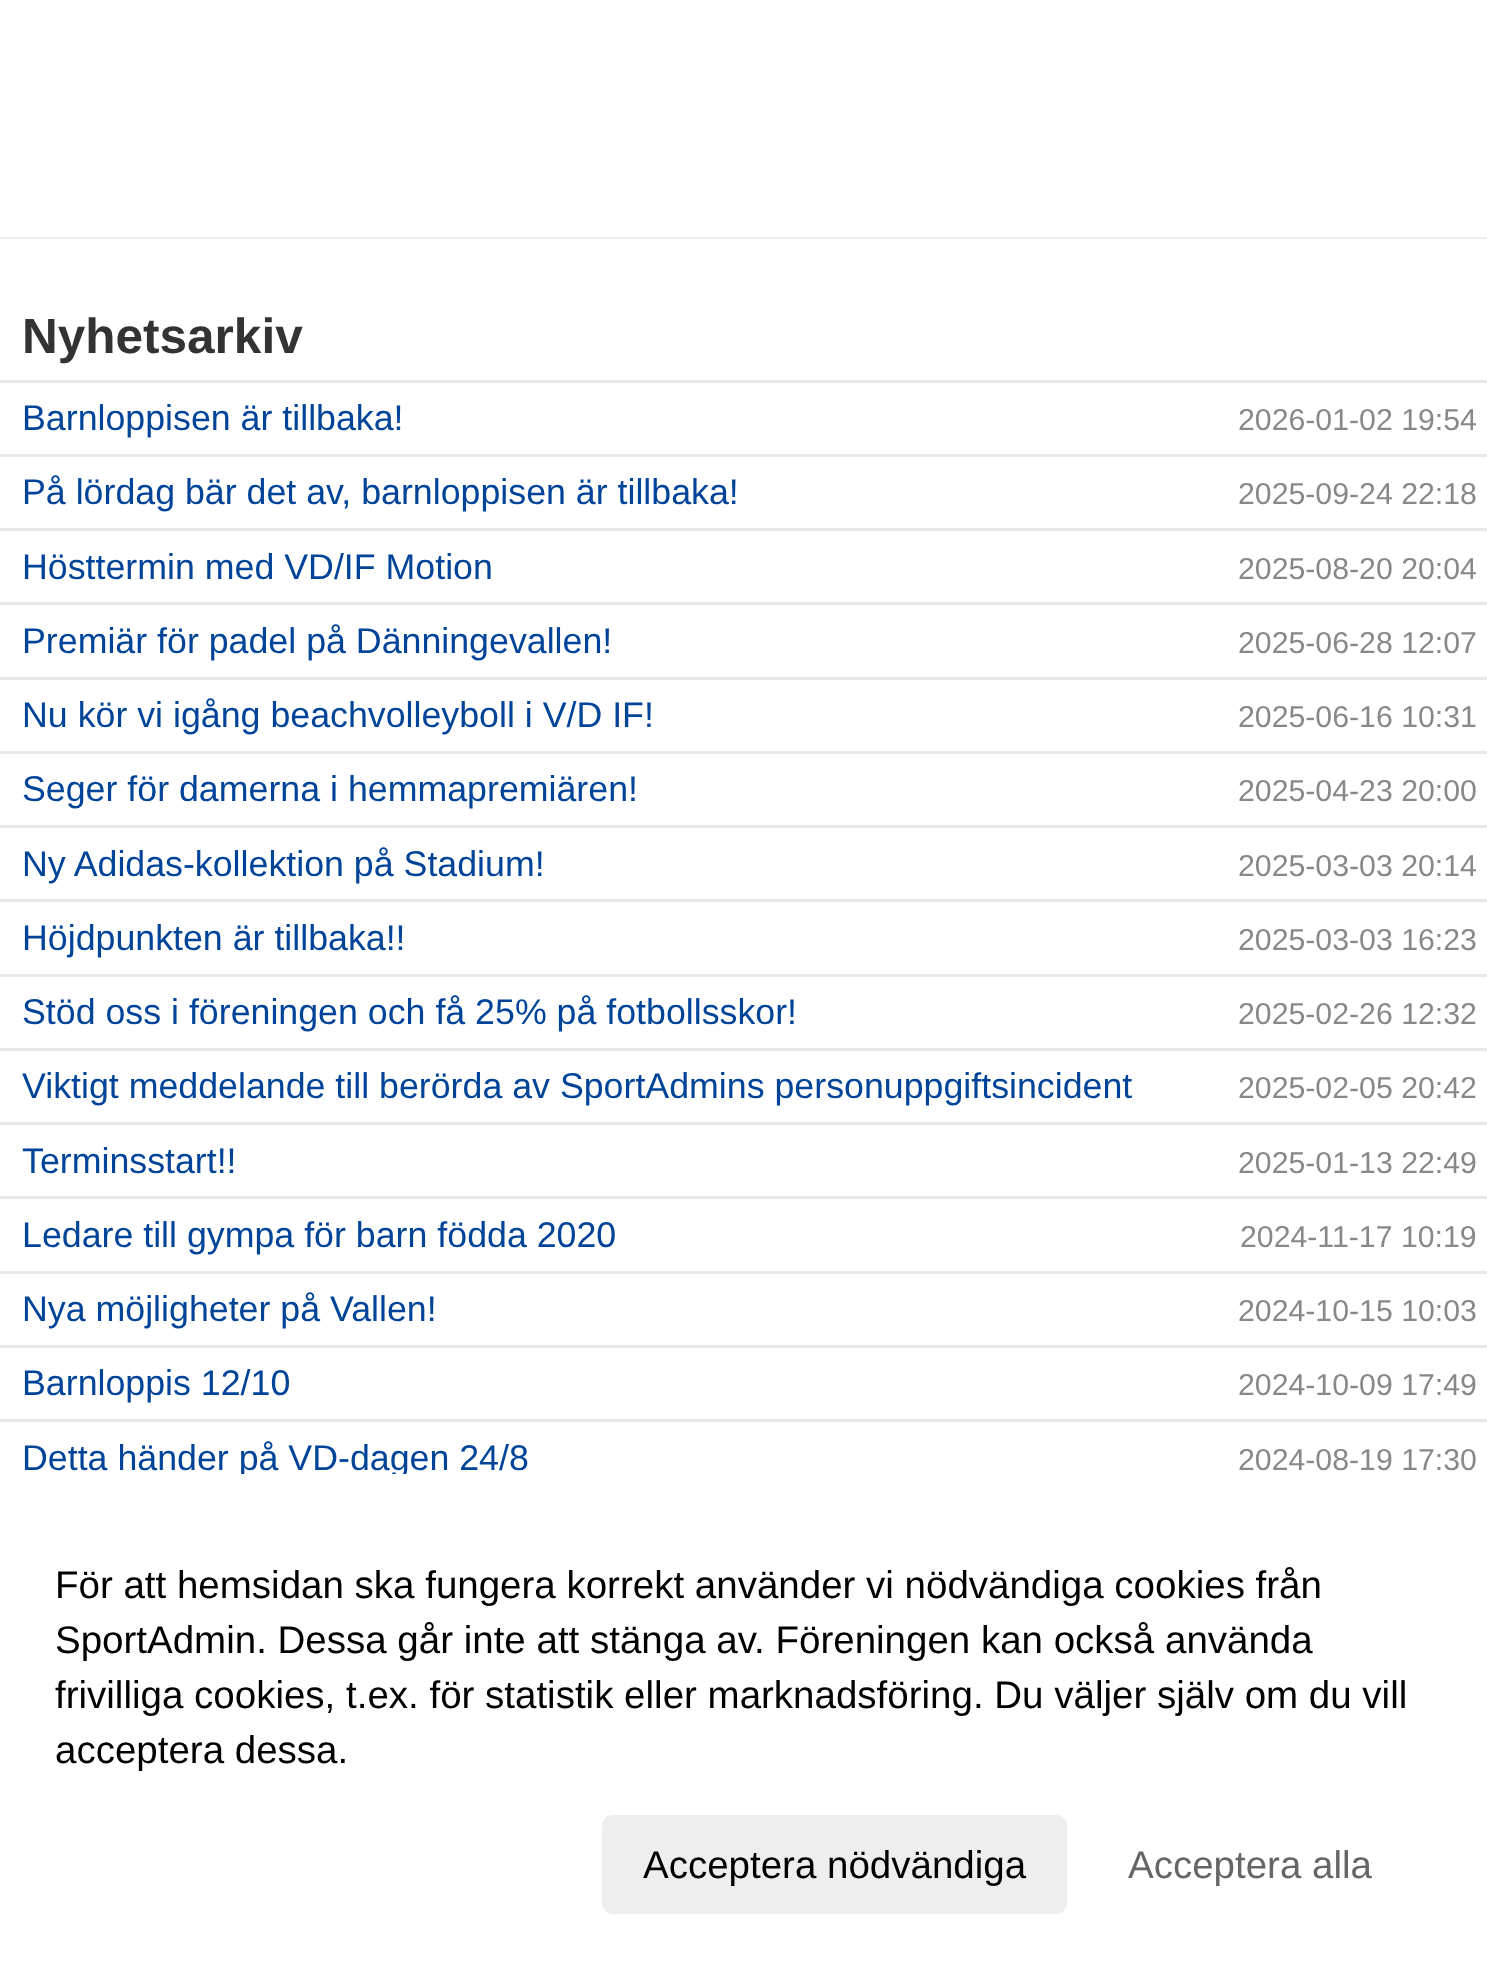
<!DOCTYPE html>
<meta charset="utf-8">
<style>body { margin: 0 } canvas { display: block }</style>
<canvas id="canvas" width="1487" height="1967"></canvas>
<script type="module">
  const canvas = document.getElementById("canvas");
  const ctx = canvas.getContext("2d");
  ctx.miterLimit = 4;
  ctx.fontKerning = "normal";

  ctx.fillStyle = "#ffffff";
  ctx.fillRect(0, 0, 1487, 1967);
  ctx.fillStyle = "#eeeeee";
  ctx.fillRect(0, 237, 1487, 2);
  ctx.font = "bold 49.5px Liberation Sans";
  ctx.fillStyle = "#333333";
  ctx.fillText("Nyhetsarkiv", 22, 353);
  ctx.fillStyle = "#e8e8e8";
  ctx.fillRect(0, 380, 1487, 3);
  ctx.font = "35.75px Liberation Sans";
  ctx.fillStyle = "#004499";
  ctx.fillText("Barnloppisen är tillbaka!", 22, 430);
  ctx.font = "30.25px Liberation Sans";
  ctx.fillStyle = "#888888";
  ctx.fillText("2026-01-02 19:54", 1238, 430);
  ctx.fillStyle = "#e8e8e8";
  ctx.fillRect(0, 454, 1487, 3);
  ctx.font = "35.75px Liberation Sans";
  ctx.fillStyle = "#004499";
  ctx.fillText("På lördag bär det av, barnloppisen är tillbaka!", 22, 504);
  ctx.font = "30.25px Liberation Sans";
  ctx.fillStyle = "#888888";
  ctx.fillText("2025-09-24 22:18", 1238, 504);
  ctx.fillStyle = "#e8e8e8";
  ctx.fillRect(0, 528, 1487, 3);
  ctx.font = "35.75px Liberation Sans";
  ctx.fillStyle = "#004499";
  ctx.fillText("Hösttermin med VD/IF Motion", 22, 579);
  ctx.font = "30.25px Liberation Sans";
  ctx.fillStyle = "#888888";
  ctx.fillText("2025-08-20 20:04", 1238, 579);
  ctx.fillStyle = "#e8e8e8";
  ctx.fillRect(0, 602, 1487, 3);
  ctx.font = "35.75px Liberation Sans";
  ctx.fillStyle = "#004499";
  ctx.fillText("Premiär för padel på Dänningevallen!", 22, 653);
  ctx.font = "30.25px Liberation Sans";
  ctx.fillStyle = "#888888";
  ctx.fillText("2025-06-28 12:07", 1238, 653);
  ctx.fillStyle = "#e8e8e8";
  ctx.fillRect(0, 677, 1487, 3);
  ctx.font = "35.75px Liberation Sans";
  ctx.fillStyle = "#004499";
  ctx.fillText("Nu kör vi igång beachvolleyboll i V/D IF!", 22, 727);
  ctx.font = "30.25px Liberation Sans";
  ctx.fillStyle = "#888888";
  ctx.fillText("2025-06-16 10:31", 1238, 727);
  ctx.fillStyle = "#e8e8e8";
  ctx.fillRect(0, 751, 1487, 3);
  ctx.font = "35.75px Liberation Sans";
  ctx.fillStyle = "#004499";
  ctx.fillText("Seger för damerna i hemmapremiären!", 22, 801);
  ctx.font = "30.25px Liberation Sans";
  ctx.fillStyle = "#888888";
  ctx.fillText("2025-04-23 20:00", 1238, 801);
  ctx.fillStyle = "#e8e8e8";
  ctx.fillRect(0, 825, 1487, 3);
  ctx.font = "35.75px Liberation Sans";
  ctx.fillStyle = "#004499";
  ctx.fillText("Ny Adidas-kollektion på Stadium!", 22, 876);
  ctx.font = "30.25px Liberation Sans";
  ctx.fillStyle = "#888888";
  ctx.fillText("2025-03-03 20:14", 1238, 876);
  ctx.fillStyle = "#e8e8e8";
  ctx.fillRect(0, 899, 1487, 3);
  ctx.font = "35.75px Liberation Sans";
  ctx.fillStyle = "#004499";
  ctx.fillText("Höjdpunkten är tillbaka!!", 22, 950);
  ctx.font = "30.25px Liberation Sans";
  ctx.fillStyle = "#888888";
  ctx.fillText("2025-03-03 16:23", 1238, 950);
  ctx.fillStyle = "#e8e8e8";
  ctx.fillRect(0, 974, 1487, 3);
  ctx.font = "35.75px Liberation Sans";
  ctx.fillStyle = "#004499";
  ctx.fillText("Stöd oss i föreningen och få 25% på fotbollsskor!", 22, 1024);
  ctx.font = "30.25px Liberation Sans";
  ctx.fillStyle = "#888888";
  ctx.fillText("2025-02-26 12:32", 1238, 1024);
  ctx.fillStyle = "#e8e8e8";
  ctx.fillRect(0, 1048, 1487, 3);
  ctx.font = "35.75px Liberation Sans";
  ctx.fillStyle = "#004499";
  ctx.fillText("Viktigt meddelande till berörda av SportAdmins personuppgiftsincident", 22, 1098);
  ctx.font = "30.25px Liberation Sans";
  ctx.fillStyle = "#888888";
  ctx.fillText("2025-02-05 20:42", 1238, 1098);
  ctx.fillStyle = "#e8e8e8";
  ctx.fillRect(0, 1122, 1487, 3);
  ctx.font = "35.75px Liberation Sans";
  ctx.fillStyle = "#004499";
  ctx.fillText("Terminsstart!!", 22, 1173);
  ctx.font = "30.25px Liberation Sans";
  ctx.fillStyle = "#888888";
  ctx.fillText("2025-01-13 22:49", 1238, 1173);
  ctx.fillStyle = "#e8e8e8";
  ctx.fillRect(0, 1196, 1487, 3);
  ctx.font = "35.75px Liberation Sans";
  ctx.fillStyle = "#004499";
  ctx.fillText("Ledare till gympa för barn födda 2020", 22, 1247);
  ctx.font = "30.25px Liberation Sans";
  ctx.fillStyle = "#888888";
  ctx.fillText("2024-11-17 10:19", 1240, 1247);
  ctx.fillStyle = "#e8e8e8";
  ctx.fillRect(0, 1271, 1487, 3);
  ctx.font = "35.75px Liberation Sans";
  ctx.fillStyle = "#004499";
  ctx.fillText("Nya möjligheter på Vallen!", 22, 1321);
  ctx.font = "30.25px Liberation Sans";
  ctx.fillStyle = "#888888";
  ctx.fillText("2024-10-15 10:03", 1238, 1321);
  ctx.fillStyle = "#e8e8e8";
  ctx.fillRect(0, 1345, 1487, 3);
  ctx.font = "35.75px Liberation Sans";
  ctx.fillStyle = "#004499";
  ctx.fillText("Barnloppis 12/10", 22, 1395);
  ctx.font = "30.25px Liberation Sans";
  ctx.fillStyle = "#888888";
  ctx.fillText("2024-10-09 17:49", 1238, 1395);
  ctx.fillStyle = "#e8e8e8";
  ctx.fillRect(0, 1419, 1487, 3);
  ctx.font = "35.75px Liberation Sans";
  ctx.fillStyle = "#004499";
  ctx.fillText("Detta händer på VD-dagen 24/8", 22, 1470);
  ctx.font = "30.25px Liberation Sans";
  ctx.fillStyle = "#888888";
  ctx.fillText("2024-08-19 17:30", 1238, 1470);
  ctx.fillStyle = "#ffffff";
  ctx.fillRect(241, 1474, 166, 4);
  ctx.font = "38.5px Liberation Sans";
  ctx.fillStyle = "#000000";
  ctx.fillText("För att hemsidan ska fungera korrekt använder vi nödvändiga cookies från", 55, 1598);
  ctx.fillText("SportAdmin. Dessa går inte att stänga av. Föreningen kan också använda", 55, 1653);
  ctx.fillText("frivilliga cookies, t.ex. för statistik eller marknadsföring. Du väljer själv om du vill", 55, 1708);
  ctx.fillText("acceptera dessa.", 55, 1763);
  ctx.fillStyle = "#eeeeee";
  ctx.beginPath();
  ctx.roundRect(602, 1815, 465, 99, 11);
  ctx.fill();
  ctx.fillStyle = "#000000";
  ctx.fillText("Acceptera nödvändiga", 643, 1878);
  ctx.fillStyle = "#666666";
  ctx.fillText("Acceptera alla", 1128, 1878);
</script>
